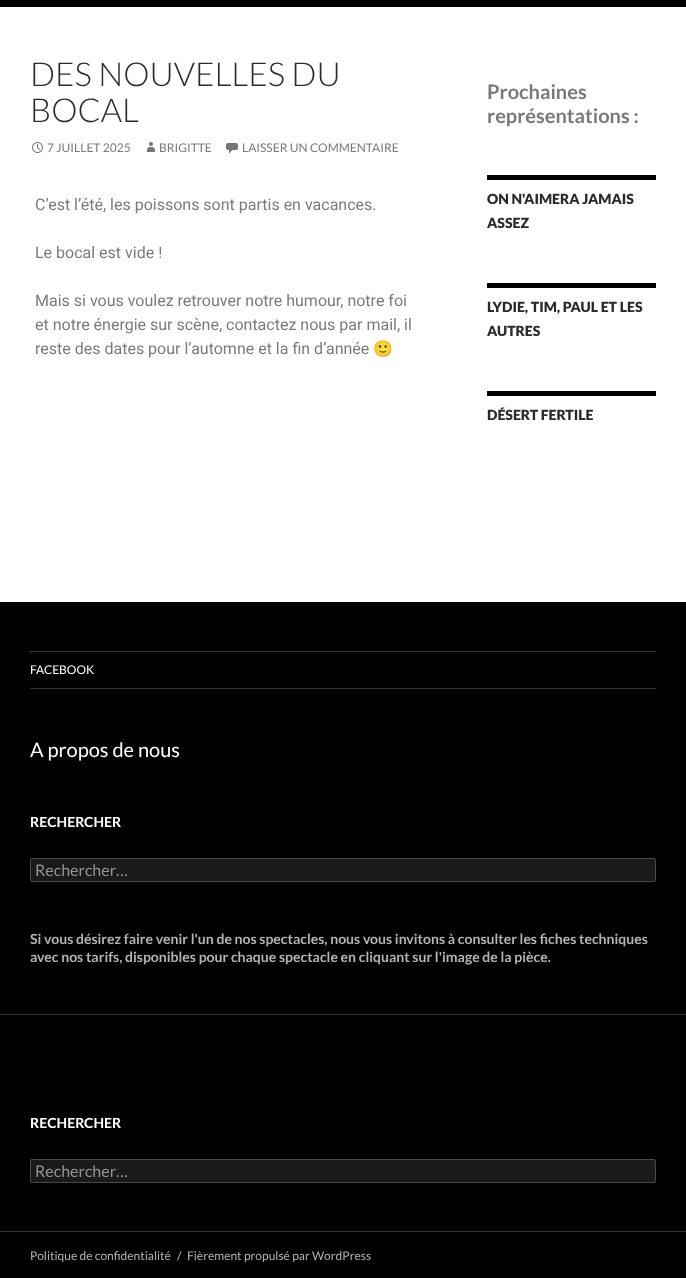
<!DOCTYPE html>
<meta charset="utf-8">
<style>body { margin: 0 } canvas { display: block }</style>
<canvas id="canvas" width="686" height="1278"></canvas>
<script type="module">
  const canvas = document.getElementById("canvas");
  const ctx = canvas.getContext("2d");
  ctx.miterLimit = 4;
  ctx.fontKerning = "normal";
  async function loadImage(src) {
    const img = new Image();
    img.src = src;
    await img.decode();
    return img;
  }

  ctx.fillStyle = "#ffffff";
  ctx.fillRect(0, 0, 686, 1278);
  ctx.fillStyle = "#000000";
  ctx.fillRect(0, 0, 686, 7);
  ctx.font = "300 33px Lato";
  ctx.fillStyle = "#2b2b2b";
  ctx.fillText("DES NOUVELLES DU", 30, 86);
  ctx.fillText("BOCAL", 30, 122);
  ctx.drawImage(await loadImage("img1.png"), 32, 142, 11, 11);
  ctx.font = "12px Lato";
  ctx.fillStyle = "#7a7a7a";
  ctx.fillText("7 JUILLET 2025", 47, 152);
  ctx.drawImage(await loadImage("img2.png"), 147, 142, 8, 10);
  ctx.fillText("BRIGITTE", 159, 152);
  ctx.drawImage(await loadImage("img3.png"), 226, 143, 12, 11);
  ctx.fillText("LAISSER UN COMMENTAIRE", 242, 152);
  ctx.font = "16px Roboto";
  ctx.fillText("C’est l’été, les poissons sont partis en vacances.", 35, 210);
  ctx.fillText("Le bocal est vide !", 35, 258);
  ctx.fillText("Mais si vous voulez retrouver notre humour, notre foi", 35, 306);
  ctx.fillText("et notre énergie sur scène, contactez nous par mail, il", 35, 330);
  ctx.fillText("reste des dates pour l’automne et la fin d’année", 35, 354);
  ctx.font = "16px Noto Color Emoji";
  ctx.fillText("🙂", 373, 354);
  ctx.font = "bold 20px Lato";
  ctx.fillText("Prochaines", 487, 99);
  ctx.fillText("représentations :", 487, 123);
  ctx.fillStyle = "#000000";
  ctx.fillRect(487, 175, 169, 5);
  ctx.font = "900 14px Lato";
  ctx.fillStyle = "#2b2b2b";
  ctx.fillText("ON N'AIMERA JAMAIS", 487, 204);
  ctx.fillText("ASSEZ", 487, 228);
  ctx.fillStyle = "#000000";
  ctx.fillRect(487, 283, 169, 5);
  ctx.fillStyle = "#2b2b2b";
  ctx.fillText("LYDIE, TIM, PAUL ET LES", 487, 312);
  ctx.fillText("AUTRES", 487, 336);
  ctx.fillStyle = "#000000";
  ctx.fillRect(487, 391, 169, 5);
  ctx.fillStyle = "#2b2b2b";
  ctx.fillText("DÉSERT FERTILE", 487, 420);
  ctx.fillStyle = "#000000";
  ctx.fillRect(0, 602, 686, 412);
  ctx.fillStyle = "#333333";
  ctx.fillRect(0, 1014, 686, 1);
  ctx.fillRect(30, 688, 626, 1);
  ctx.fillRect(30, 651, 626, 1);
  ctx.font = "12px Lato";
  ctx.fillStyle = "#ffffff";
  ctx.fillText("FACEBOOK", 30, 674);
  ctx.font = "20px Lato";
  ctx.fillText("A propos de nous", 30, 757);
  ctx.font = "bold 14px Lato";
  ctx.fillText("RECHERCHER", 30, 827);
  ctx.fillStyle = "#1a1a1a";
  ctx.beginPath();
  ctx.roundRect(30, 858, 626, 24, 2);
  ctx.fill();
  ctx.beginPath();
  ctx.roundRect(30.5, 858.5, 625, 23, 1.5);
  ctx.strokeStyle = "rgba(255, 255, 255, 0.2)";
  ctx.stroke();
  ctx.font = "16px Lato";
  ctx.fillStyle = "#939393";
  ctx.fillText("Rechercher…", 35, 876);
  ctx.font = "bold 14px Lato";
  ctx.fillStyle = "#b3b3b3";
  ctx.fillText("Si vous désirez faire venir l'un de nos spectacles, nous vous invitons à consulter les fiches techniques", 30, 944);
  ctx.fillText("avec nos tarifs, disponibles pour chaque spectacle en cliquant sur l'image de la pièce.", 30, 962);
  ctx.fillStyle = "#000000";
  ctx.fillRect(0, 1015, 686, 263);
  ctx.fillStyle = "#ffffff";
  ctx.fillText("RECHERCHER", 30, 1128);
  ctx.fillStyle = "#1a1a1a";
  ctx.beginPath();
  ctx.roundRect(30, 1159, 626, 24, 2);
  ctx.fill();
  ctx.beginPath();
  ctx.roundRect(30.5, 1159.5, 625, 23, 1.5);
  ctx.stroke();
  ctx.font = "16px Lato";
  ctx.fillStyle = "#939393";
  ctx.fillText("Rechercher…", 35, 1177);
  ctx.fillStyle = "#333333";
  ctx.fillRect(0, 1231, 686, 1);
  ctx.font = "12px Lato";
  ctx.fillStyle = "#b3b3b3";
  ctx.fillText("Politique de confidentialité", 30, 1260);
  ctx.fillText("/", 177, 1260);
  ctx.fillText("Fièrement propulsé par WordPress", 187, 1260);
</script>
